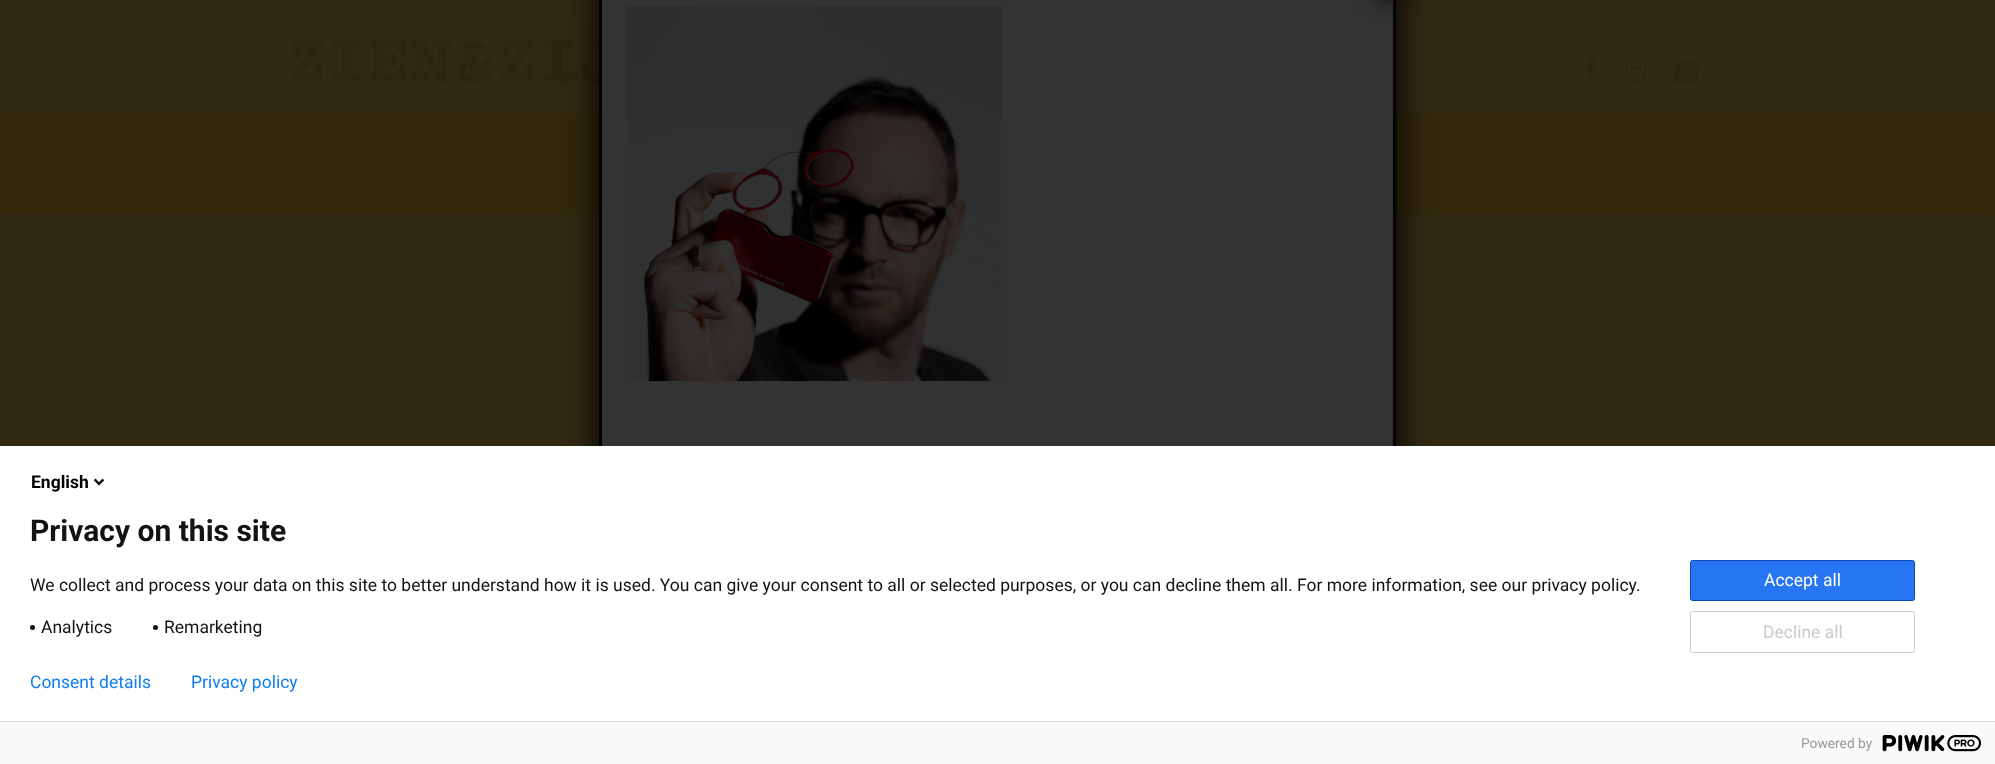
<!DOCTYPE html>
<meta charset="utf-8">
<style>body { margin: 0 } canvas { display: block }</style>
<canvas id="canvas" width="1995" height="764"></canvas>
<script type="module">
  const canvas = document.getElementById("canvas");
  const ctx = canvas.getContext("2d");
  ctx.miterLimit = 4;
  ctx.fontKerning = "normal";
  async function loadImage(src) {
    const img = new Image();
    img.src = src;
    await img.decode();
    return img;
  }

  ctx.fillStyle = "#312a13";
  ctx.fillRect(0, 0, 1995, 764);
  ctx.drawImage(await loadImage("img2.png"), 291, 38, 308, 45);
  ctx.fillStyle = "#32280c";
  ctx.fillRect(0, 113, 1995, 100);
  ctx.drawImage(await loadImage("img6.png"), 0, 214, 1995, 2);
  ctx.fillStyle = "#000000";
  ctx.filter = "blur(19px)";
  ctx.beginPath();
  ctx.roundRect(599, -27, 797, 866, 23);
  ctx.fill();
  ctx.filter = "none";
  ctx.fillStyle = "#333333";
  ctx.fillRect(602, 0, 791, 446);
  ctx.strokeStyle = "#000000";
  ctx.lineWidth = 3;
  ctx.strokeRect(600.5, -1.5, 794, 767);
  ctx.drawImage(await loadImage("img1.png"), 626, 6, 375, 375);
  ctx.fillStyle = "rgba(0, 0, 0, 0.75)";
  ctx.filter = "blur(9.5px)";
  ctx.beginPath();
  ctx.roundRect(1369, -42, 42, 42, 21);
  ctx.fill();
  ctx.filter = "none";
  ctx.drawImage(await loadImage("img3.png"), 1585, 58, 12, 24);
  ctx.drawImage(await loadImage("img4.png"), 1625, 60, 22, 22);
  ctx.drawImage(await loadImage("img5.png"), 1673, 62, 26, 20);
  ctx.fillStyle = "#ffffff";
  ctx.fillRect(0, 446, 1995, 275);
  ctx.font = "bold 17.5px Roboto";
  ctx.fillStyle = "#000000";
  ctx.fillText("English", 31, 488);
  ctx.drawImage(await loadImage("img7.png"), 93, 478, 12, 8);
  ctx.font = "bold 30px Roboto";
  ctx.fillStyle = "#131313";
  ctx.fillText("Privacy on this site", 30, 541);
  ctx.font = "17.5px Roboto";
  ctx.fillText("We collect and process your data on this site to better understand how it is used. You can give your consent to all or selected purposes, or you can decline them all. For more information, see our privacy policy.", 30, 591);
  ctx.beginPath();
  ctx.arc(32.5, 627.5, 2.5, 0, Math.PI * 2);
  ctx.fill();
  ctx.fillText("Analytics", 41, 633);
  ctx.beginPath();
  ctx.arc(155.5, 627.5, 2.5, 0, Math.PI * 2);
  ctx.fill();
  ctx.fillText("Remarketing", 164, 633);
  ctx.fillStyle = "#2775f2";
  ctx.beginPath();
  ctx.roundRect(1690.5, 560.5, 224, 40, 2);
  ctx.fill();
  ctx.strokeStyle = "#0b4bb3";
  ctx.lineWidth = 1;
  ctx.stroke();
  ctx.fillStyle = "#ffffff";
  ctx.fillText("Accept all", 1764, 586);
  ctx.beginPath();
  ctx.roundRect(1690.5, 611.5, 224, 41, 2);
  ctx.strokeStyle = "#cacaca";
  ctx.stroke();
  ctx.fillStyle = "#cacaca";
  ctx.fillText("Decline all", 1763, 638);
  ctx.fillStyle = "#107ef1";
  ctx.fillText("Consent details", 30, 688);
  ctx.fillText("Privacy policy", 191, 688);
  ctx.fillStyle = "#fafafa";
  ctx.fillRect(0, 722, 1995, 42);
  ctx.fillStyle = "#dddddd";
  ctx.fillRect(0, 721, 1995, 1);
  ctx.font = "13.75px Roboto";
  ctx.fillStyle = "#999999";
  ctx.fillText("Powered by", 1801, 748);
  ctx.drawImage(await loadImage("img8.png"), 1882, 735, 99, 17);
</script>
